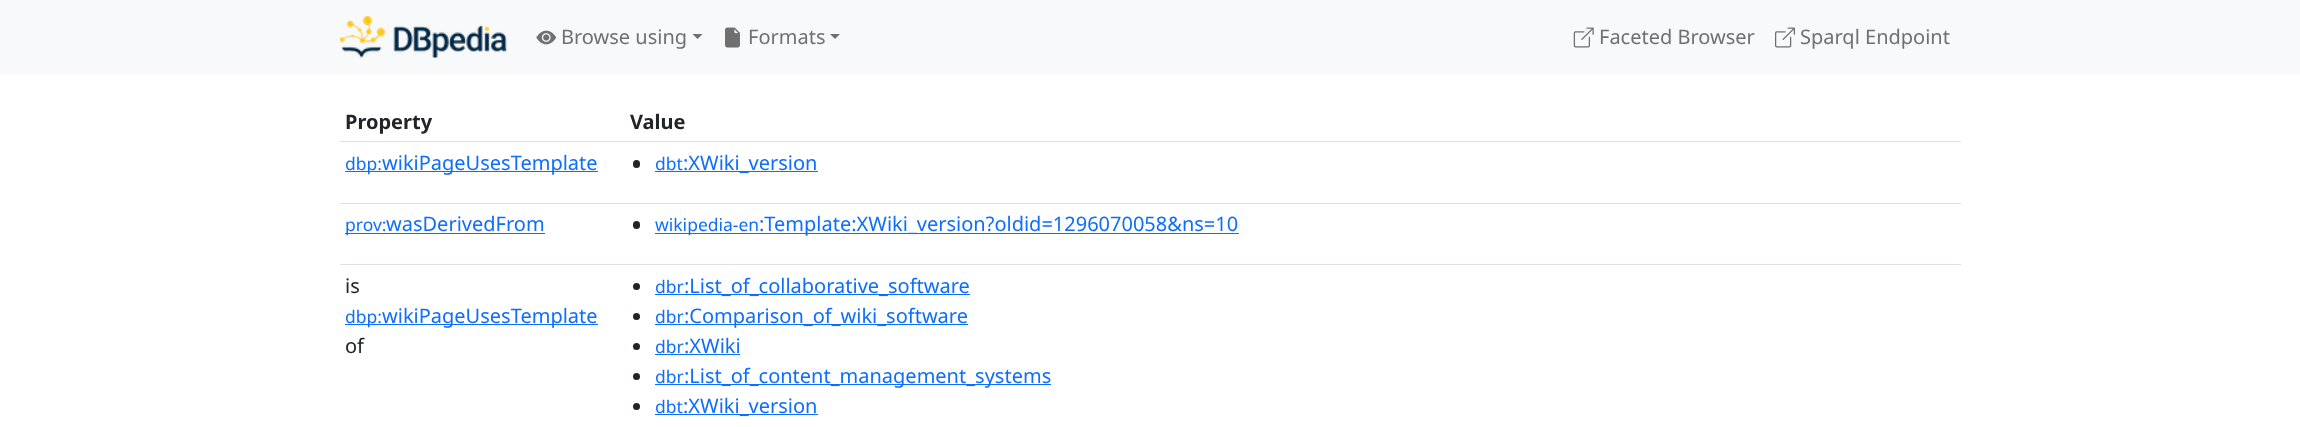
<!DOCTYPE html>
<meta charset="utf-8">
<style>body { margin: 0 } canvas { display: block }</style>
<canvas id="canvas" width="2300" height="427"></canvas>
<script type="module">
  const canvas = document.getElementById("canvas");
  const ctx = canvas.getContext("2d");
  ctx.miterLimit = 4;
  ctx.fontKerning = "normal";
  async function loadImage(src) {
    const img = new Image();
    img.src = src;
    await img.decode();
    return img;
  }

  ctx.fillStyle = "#ffffff";
  ctx.fillRect(0, 0, 2300, 427);
  ctx.fillStyle = "#f8f9fa";
  ctx.fillRect(0, 0, 2300, 74);
  ctx.drawImage(await loadImage("img1.png"), 340, 16, 167, 42);
  ctx.drawImage(await loadImage("img2.png"), 536, 30, 21, 15);
  ctx.font = "20px Noto Sans";
  ctx.fillStyle = "#707071";
  ctx.fillText("Browse using", 561, 44);
  ctx.beginPath();
  ctx.moveTo(692.5, 34);
  ctx.lineTo(702.5, 34);
  ctx.lineTo(697.5, 39);
  ctx.closePath();
  ctx.fill();
  ctx.drawImage(await loadImage("img3.png"), 725, 27, 15, 21);
  ctx.fillText("Formats", 748, 44);
  ctx.beginPath();
  ctx.moveTo(830, 34);
  ctx.lineTo(840, 34);
  ctx.lineTo(835, 39);
  ctx.closePath();
  ctx.fill();
  ctx.drawImage(await loadImage("img4.png"), 1573, 27, 21, 21);
  ctx.fillText("Faceted Browser", 1599, 44);
  ctx.drawImage(await loadImage("img5.png"), 1775, 27, 20, 21);
  ctx.fillText("Sparql Endpoint", 1800, 44);
  ctx.font = "bold 20px Noto Sans";
  ctx.fillStyle = "#212529";
  ctx.fillText("Property", 345, 129);
  ctx.fillStyle = "#dee2e6";
  ctx.fillRect(340, 141, 1621, 1);
  ctx.fillStyle = "#212529";
  ctx.fillText("Value", 630, 129);
  ctx.fillStyle = "#0d6efd";
  ctx.fillRect(345, 171, 253, 1);
  ctx.font = "17.5px Noto Sans";
  ctx.fillText("dbp:", 345, 170);
  ctx.font = "20px Noto Sans";
  ctx.fillText("wikiPageUsesTemplate", 382, 170);
  ctx.fillStyle = "#dee2e6";
  ctx.fillRect(340, 203, 1621, 1);
  ctx.fillStyle = "#212529";
  ctx.beginPath();
  ctx.roundRect(633, 160, 7, 8, 3.5);
  ctx.fill();
  ctx.font = "17.5px Noto Sans";
  ctx.fillStyle = "#0d6efd";
  ctx.fillText("dbt", 655, 170);
  ctx.fillRect(655, 171, 163, 1);
  ctx.font = "20px Noto Sans";
  ctx.fillText(":XWiki_version", 683, 170);
  ctx.fillRect(345, 233, 200, 1);
  ctx.font = "17.5px Noto Sans";
  ctx.fillText("prov:", 345, 231);
  ctx.font = "20px Noto Sans";
  ctx.fillText("wasDerivedFrom", 386, 231);
  ctx.fillStyle = "#dee2e6";
  ctx.fillRect(340, 264, 1621, 1);
  ctx.fillStyle = "#212529";
  ctx.beginPath();
  ctx.roundRect(633, 221, 7, 8, 3.5);
  ctx.fill();
  ctx.fillStyle = "#0d6efd";
  ctx.fillRect(655, 233, 584, 1);
  ctx.font = "17.5px Noto Sans";
  ctx.fillText("wikipedia-en", 655, 231);
  ctx.font = "20px Noto Sans";
  ctx.fillText(":Template:XWiki_version?oldid=1296070058&ns=10", 759, 231);
  ctx.fillStyle = "#212529";
  ctx.fillText("is", 345, 293);
  ctx.fillStyle = "#0d6efd";
  ctx.fillRect(345, 324, 253, 1);
  ctx.font = "17.5px Noto Sans";
  ctx.fillText("dbp:", 345, 323);
  ctx.font = "20px Noto Sans";
  ctx.fillText("wikiPageUsesTemplate", 382, 323);
  ctx.fillStyle = "#212529";
  ctx.fillText("of", 345, 353);
  ctx.beginPath();
  ctx.arc(636.5, 286.5, 3.5, 0, Math.PI * 2);
  ctx.fill();
  ctx.font = "17.5px Noto Sans";
  ctx.fillStyle = "#0d6efd";
  ctx.fillText("dbr", 655, 293);
  ctx.fillRect(655, 294, 315, 1);
  ctx.font = "20px Noto Sans";
  ctx.fillText(":List_of_collaborative_software", 684, 293);
  ctx.fillStyle = "#212529";
  ctx.beginPath();
  ctx.arc(636.5, 316.5, 3.5, 0, Math.PI * 2);
  ctx.fill();
  ctx.font = "17.5px Noto Sans";
  ctx.fillStyle = "#0d6efd";
  ctx.fillText("dbr", 655, 323);
  ctx.fillRect(655, 324, 313, 1);
  ctx.font = "20px Noto Sans";
  ctx.fillText(":Comparison_of_wiki_software", 684, 323);
  ctx.fillStyle = "#212529";
  ctx.beginPath();
  ctx.arc(636.5, 346.5, 3.5, 0, Math.PI * 2);
  ctx.fill();
  ctx.font = "17.5px Noto Sans";
  ctx.fillStyle = "#0d6efd";
  ctx.fillText("dbr", 655, 353);
  ctx.fillRect(655, 354, 85, 1);
  ctx.font = "20px Noto Sans";
  ctx.fillText(":XWiki", 684, 353);
  ctx.fillStyle = "#212529";
  ctx.beginPath();
  ctx.arc(636.5, 376.5, 3.5, 0, Math.PI * 2);
  ctx.fill();
  ctx.font = "17.5px Noto Sans";
  ctx.fillStyle = "#0d6efd";
  ctx.fillText("dbr", 655, 383);
  ctx.fillRect(655, 384, 396, 1);
  ctx.font = "20px Noto Sans";
  ctx.fillText(":List_of_content_management_systems", 684, 383);
  ctx.fillStyle = "#212529";
  ctx.beginPath();
  ctx.arc(636.5, 406.5, 3.5, 0, Math.PI * 2);
  ctx.fill();
  ctx.font = "17.5px Noto Sans";
  ctx.fillStyle = "#0d6efd";
  ctx.fillText("dbt", 655, 413);
  ctx.fillRect(655, 414, 163, 1);
  ctx.font = "20px Noto Sans";
  ctx.fillText(":XWiki_version", 683, 413);
</script>
